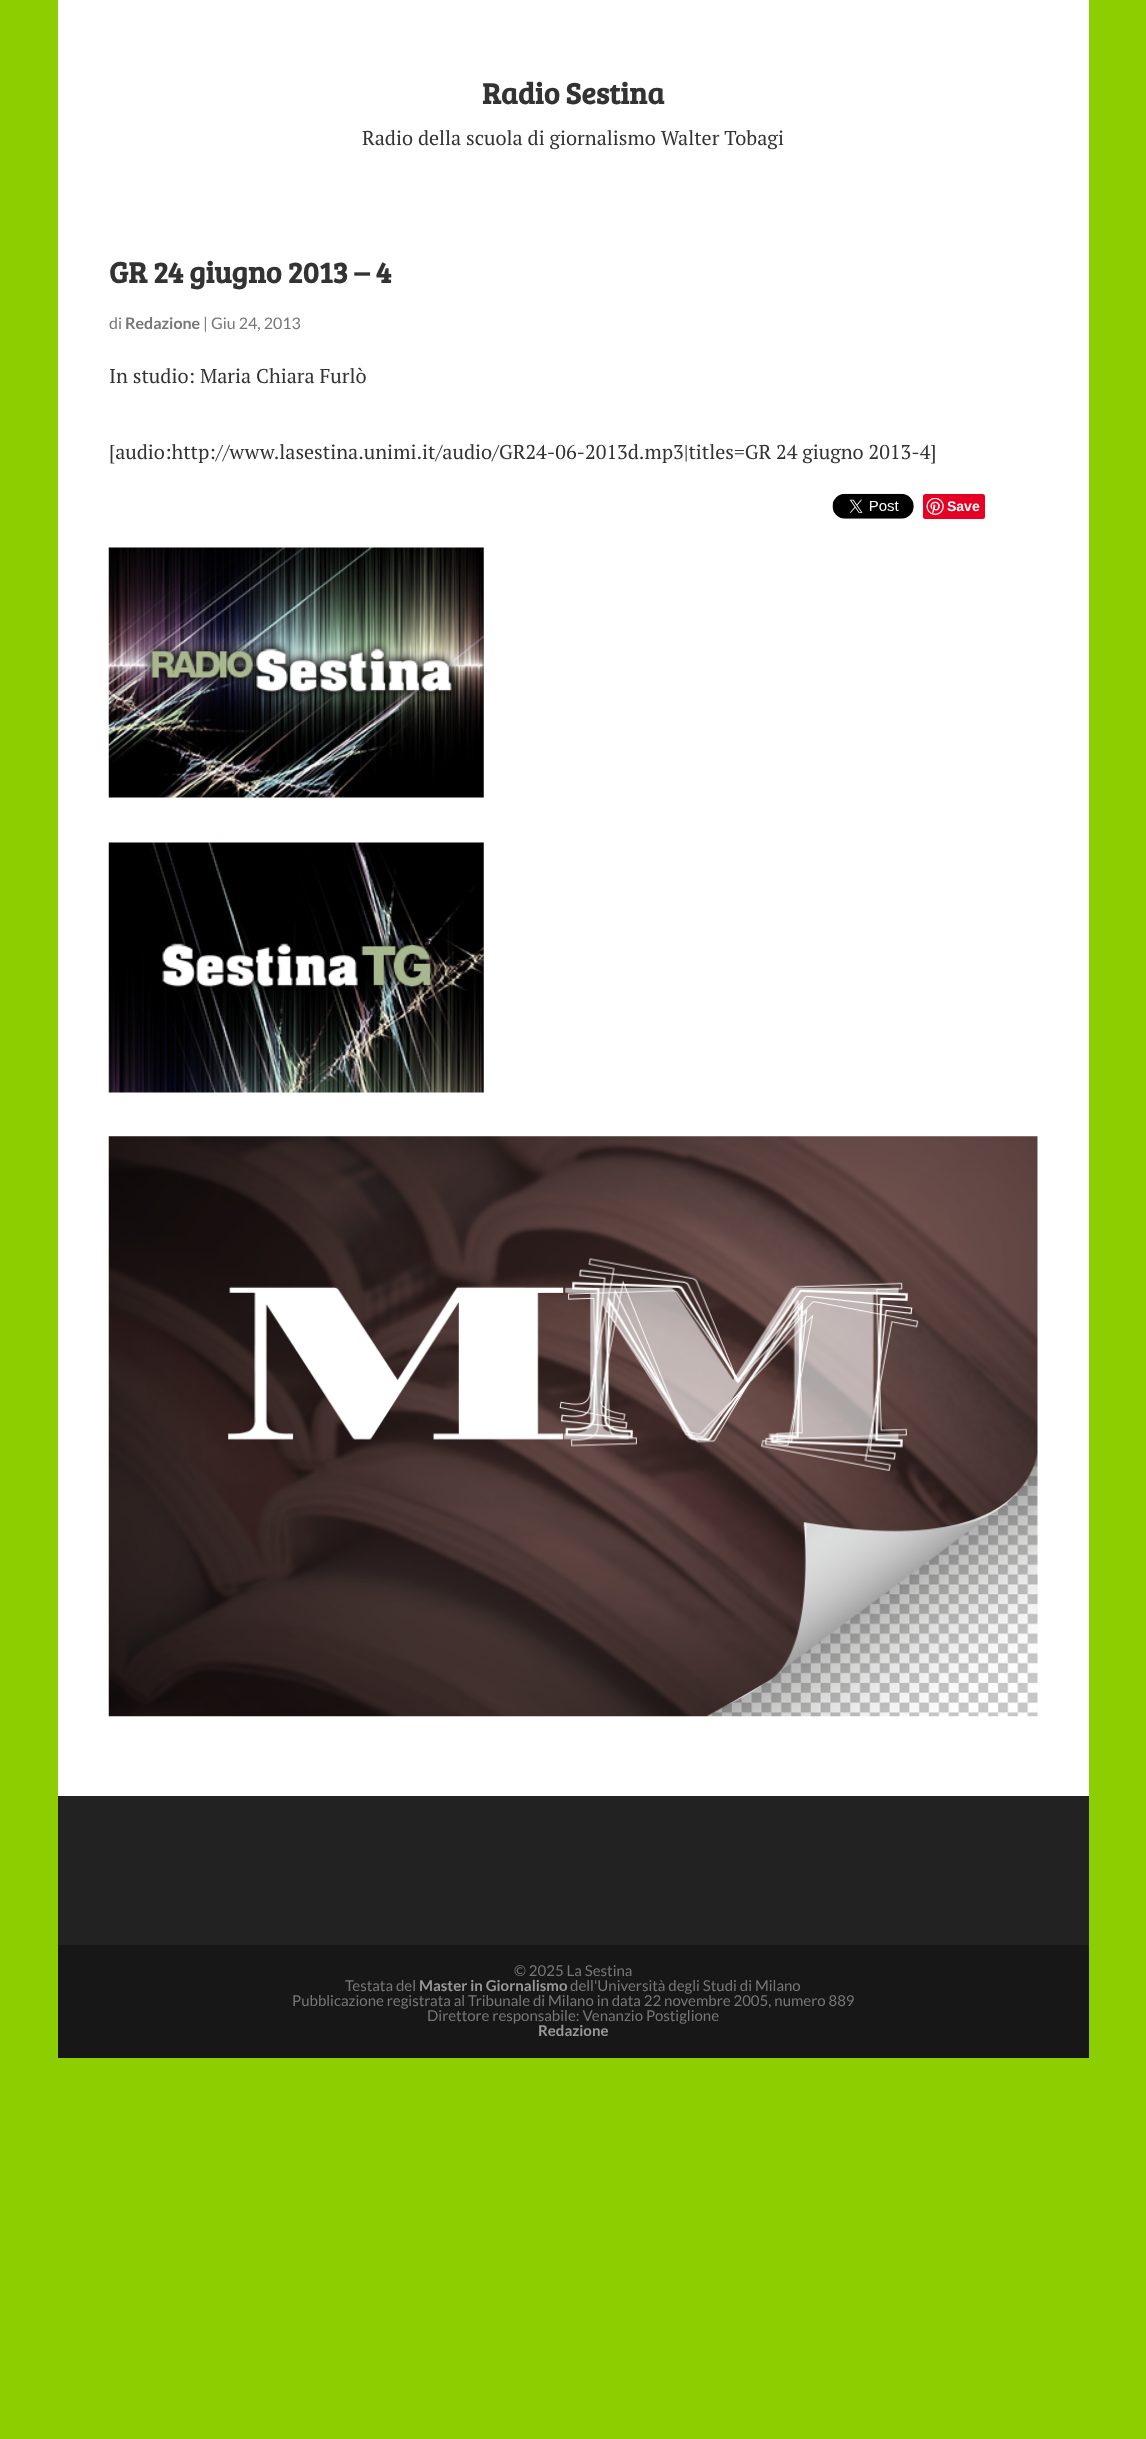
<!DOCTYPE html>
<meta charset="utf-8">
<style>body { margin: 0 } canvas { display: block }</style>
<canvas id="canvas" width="1146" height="2439"></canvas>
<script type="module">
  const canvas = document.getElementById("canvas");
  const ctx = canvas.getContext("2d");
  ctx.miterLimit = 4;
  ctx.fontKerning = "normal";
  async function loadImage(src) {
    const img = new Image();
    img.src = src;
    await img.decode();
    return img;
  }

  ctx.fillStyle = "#8cce00";
  ctx.fillRect(0, 0, 1146, 2439);
  ctx.fillStyle = "#ffffff";
  ctx.fillRect(58, 0, 1031, 1796);
  ctx.font = "bold 30px Bree Serif";
  ctx.fillStyle = "#333333";
  ctx.fillText("Radio Sestina", 482, 104);
  ctx.font = "20px PT Serif";
  ctx.fillText("Radio della scuola di giornalismo Walter Tobagi", 362, 145);
  ctx.font = "bold 30px Bree Serif";
  ctx.fillText("GR 24 giugno 2013 – 4", 109, 283);
  ctx.font = "16px Lato";
  ctx.fillStyle = "#777777";
  ctx.fillText("di", 109, 329);
  ctx.font = "bold 16px Lato";
  ctx.fillText("Redazione", 125, 329);
  ctx.font = "16px Lato";
  ctx.fillText("| Giu 24, 2013", 203, 329);
  ctx.font = "20px PT Serif";
  ctx.fillStyle = "#333333";
  ctx.fillText("In studio: Maria Chiara Furlò", 109, 383);
  ctx.fillText("[audio:http://www.lasestina.unimi.it/audio/GR24-06-2013d.mp3|titles=GR 24 giugno 2013-4]", 109, 459);
  ctx.drawImage(await loadImage("img1.png"), 832, 493, 82, 26);
  ctx.fillStyle = "#e60023";
  ctx.beginPath();
  ctx.roundRect(923, 494, 62, 25, 2.5);
  ctx.fill();
  ctx.drawImage(await loadImage("img2.png"), 926, 498, 18, 17);
  ctx.font = "bold 14px Liberation Sans";
  ctx.fillStyle = "#ffffff";
  ctx.fillText("Save", 947, 511);
  ctx.drawImage(await loadImage("img3.png"), 108, 547, 376, 251);
  ctx.drawImage(await loadImage("img4.png"), 108, 842, 376, 251);
  ctx.drawImage(await loadImage("img5.png"), 108, 1136, 930, 581);
  ctx.fillStyle = "#222222";
  ctx.fillRect(58, 1796, 1031, 149);
  ctx.fillStyle = "#171717";
  ctx.fillRect(58, 1945, 1031, 113);
  ctx.font = "15px Lato";
  ctx.fillStyle = "#777777";
  ctx.fillText("© 2025 La Sestina", 514, 1976);
  ctx.fillText("Testata del", 345, 1991);
  ctx.font = "bold 15px Lato";
  ctx.fillStyle = "#999999";
  ctx.fillText("Master in Giornalismo", 419, 1991);
  ctx.font = "15px Lato";
  ctx.fillStyle = "#777777";
  ctx.fillText("dell'Università degli Studi di Milano", 570, 1991);
  ctx.fillText("Pubblicazione registrata al Tribunale di Milano in data 22 novembre 2005, numero 889", 292, 2006);
  ctx.fillText("Direttore responsabile: Venanzio Postiglione", 427, 2021);
  ctx.font = "bold 15px Lato";
  ctx.fillStyle = "#999999";
  ctx.fillText("Redazione", 538, 2036);
</script>
